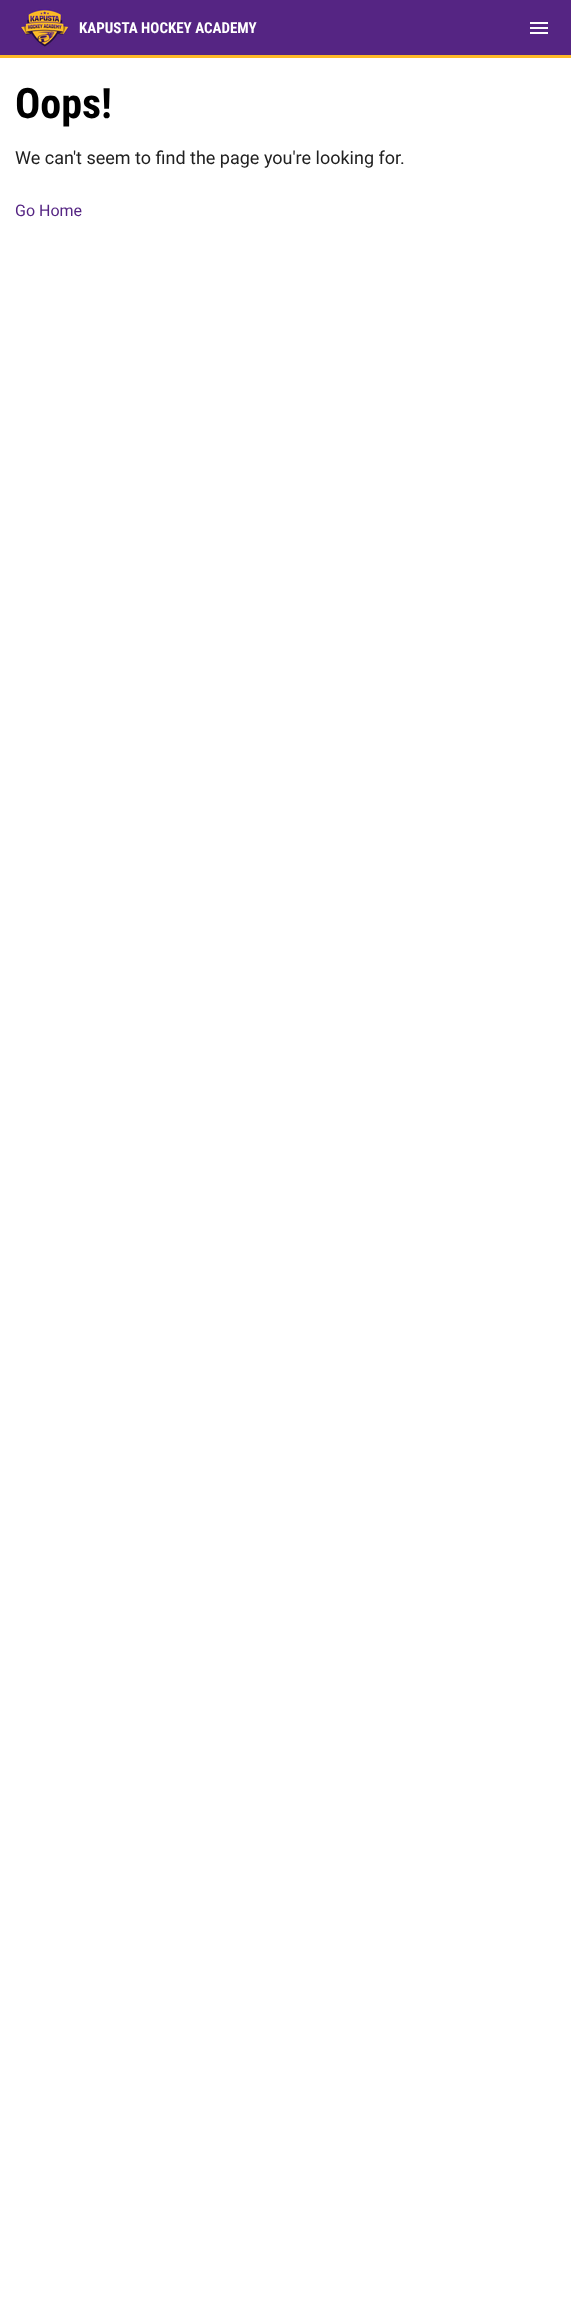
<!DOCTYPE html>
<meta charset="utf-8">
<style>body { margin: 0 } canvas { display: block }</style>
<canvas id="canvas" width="571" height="2306"></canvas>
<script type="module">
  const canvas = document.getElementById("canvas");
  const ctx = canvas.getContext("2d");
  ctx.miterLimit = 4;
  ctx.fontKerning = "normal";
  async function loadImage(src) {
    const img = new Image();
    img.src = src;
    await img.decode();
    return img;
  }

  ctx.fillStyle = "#ffffff";
  ctx.fillRect(0, 0, 571, 2306);
  ctx.fillStyle = "#552583";
  ctx.fillRect(0, 0, 571, 55);
  ctx.drawImage(await loadImage("img1.png"), 20, 9, 49, 38);
  ctx.font = "bold 15px Roboto Condensed";
  ctx.fillStyle = "#ffffff";
  ctx.fillText("KAPUSTA HOCKEY ACADEMY", 79, 33);
  ctx.drawImage(await loadImage("img2.png"), 530, 22, 18, 12);
  ctx.fillStyle = "#fdb927";
  ctx.fillRect(0, 55, 571, 3);
  ctx.font = "bold 42px Roboto Condensed";
  ctx.fillStyle = "#000000";
  ctx.fillText("Oops!", 15, 118);
  ctx.font = "18px Roboto";
  ctx.fillStyle = "#202020";
  ctx.fillText("We can't seem to find the page you're looking for.", 15, 164);
  ctx.font = "16px Roboto";
  ctx.fillStyle = "#552583";
  ctx.fillText("Go Home", 15, 216);
</script>
